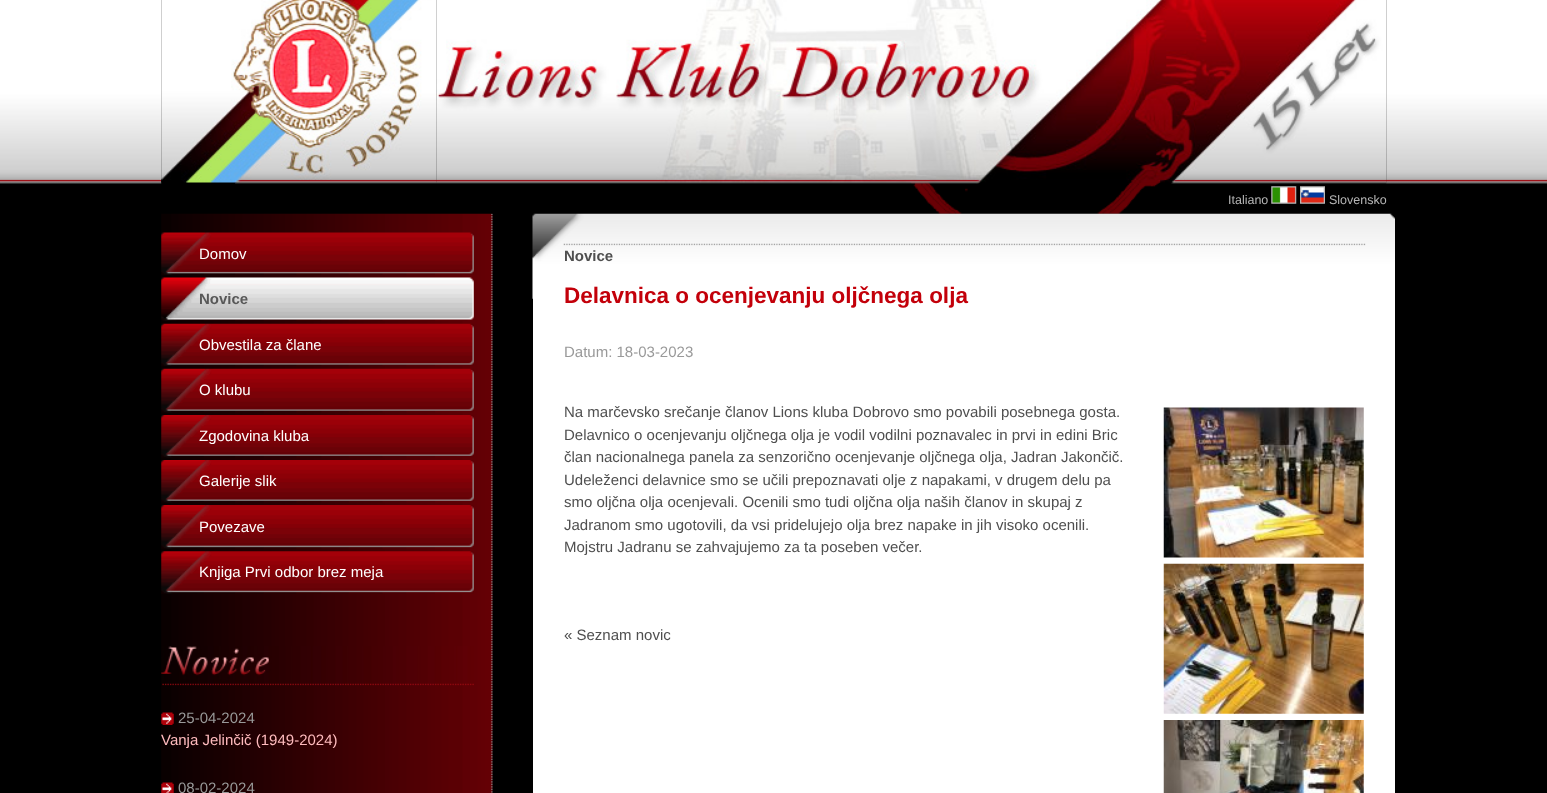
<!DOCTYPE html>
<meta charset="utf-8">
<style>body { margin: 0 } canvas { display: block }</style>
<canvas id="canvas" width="1547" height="793"></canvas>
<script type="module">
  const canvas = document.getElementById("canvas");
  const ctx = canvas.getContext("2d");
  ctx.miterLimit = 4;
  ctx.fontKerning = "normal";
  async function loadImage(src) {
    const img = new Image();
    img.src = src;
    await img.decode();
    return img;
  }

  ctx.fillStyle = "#000000";
  ctx.fillRect(0, 0, 1547, 793);
  ctx.drawImage(await loadImage("img1.png"), 0, 0, 1547, 184);
  ctx.drawImage(await loadImage("img2.png"), 161, 0, 1226, 214);
  ctx.drawImage(await loadImage("img3.png"), 161, 0, 276, 183);
  ctx.drawImage(await loadImage("img4.png"), 436, 0, 951, 183);
  ctx.font = "12.5px Liberation Sans";
  ctx.fillStyle = "#b5b5b5";
  ctx.fillText("Italiano", 1228, 204);
  ctx.drawImage(await loadImage("img5.png"), 1271, 186, 26, 18);
  ctx.drawImage(await loadImage("img6.png"), 1300, 186, 25, 18);
  ctx.fillText("Slovensko", 1329, 204);
  ctx.drawImage(await loadImage("img7.png"), 161, 213, 332, 580);
  ctx.drawImage(await loadImage("img8.png"), 161, 232, 313, 43);
  ctx.font = "15px Liberation Sans";
  ctx.fillStyle = "#ffffff";
  ctx.fillText("Domov", 199, 259);
  ctx.drawImage(await loadImage("img9.png"), 161, 277, 313, 44);
  ctx.font = "bold 15px Liberation Sans";
  ctx.fillStyle = "#585858";
  ctx.fillText("Novice", 199, 304);
  ctx.drawImage(await loadImage("img10.png"), 161, 323, 313, 43);
  ctx.font = "15px Liberation Sans";
  ctx.fillStyle = "#ffffff";
  ctx.fillText("Obvestila za člane", 199, 350);
  ctx.drawImage(await loadImage("img11.png"), 161, 368, 313, 45);
  ctx.fillText("O klubu", 199, 395);
  ctx.drawImage(await loadImage("img12.png"), 161, 415, 313, 43);
  ctx.fillText("Zgodovina kluba", 199, 441);
  ctx.drawImage(await loadImage("img12.png"), 161, 460, 313, 43);
  ctx.fillText("Galerije slik", 199, 486);
  ctx.drawImage(await loadImage("img13.png"), 161, 505, 313, 44);
  ctx.fillText("Povezave", 199, 532);
  ctx.drawImage(await loadImage("img14.png"), 161, 551, 313, 43);
  ctx.fillText("Knjiga Prvi odbor brez meja", 199, 577);
  ctx.drawImage(await loadImage("img15.png"), 161, 646, 313, 40);
  ctx.drawImage(await loadImage("img16.png"), 161, 712, 13, 13);
  ctx.fillStyle = "#999999";
  ctx.fillText("25-04-2024", 178, 723);
  ctx.fillStyle = "#ffbbbe";
  ctx.fillText("Vanja Jelinčič (1949-2024)", 161, 745);
  ctx.drawImage(await loadImage("img17.png"), 161, 782, 13, 11);
  ctx.fillStyle = "#999999";
  ctx.fillText("08-02-2024", 178, 793);
  ctx.fillStyle = "#ffffff";
  ctx.fillRect(533, 298, 862, 495);
  ctx.drawImage(await loadImage("img18.png"), 532, 213, 863, 86);
  ctx.font = "bold 15px Liberation Sans";
  ctx.fillStyle = "#4f4f4f";
  ctx.fillText("Novice", 564, 261);
  ctx.font = "bold 22.5px Liberation Sans";
  ctx.fillStyle = "#c3000a";
  ctx.fillText("Delavnica o ocenjevanju oljčnega olja", 564, 303);
  ctx.font = "15px Liberation Sans";
  ctx.fillStyle = "#999999";
  ctx.fillText("Datum: 18-03-2023", 564, 357);
  ctx.fillStyle = "#4f4f4f";
  ctx.fillText("Na marčevsko srečanje članov Lions kluba Dobrovo smo povabili posebnega gosta.", 564, 417);
  ctx.fillText("Delavnico o ocenjevanju oljčnega olja je vodil vodilni poznavalec in prvi in edini Bric", 564, 440);
  ctx.fillText("član nacionalnega panela za senzorično ocenjevanje oljčnega olja, Jadran Jakončič.", 564, 462);
  ctx.fillText("Udeleženci delavnice smo se učili prepoznavati olje z napakami, v drugem delu pa", 564, 485);
  ctx.fillText("smo oljčna olja ocenjevali. Ocenili smo tudi oljčna olja naših članov in skupaj z", 564, 507);
  ctx.fillText("Jadranom smo ugotovili, da vsi pridelujejo olja brez napake in jih visoko ocenili.", 564, 530);
  ctx.fillText("Mojstru Jadranu se zahvajujemo za ta poseben večer.", 564, 552);
  ctx.drawImage(await loadImage("img19.png"), 1163, 407, 201, 151);
  ctx.drawImage(await loadImage("img20.png"), 1163, 563, 201, 151);
  ctx.drawImage(await loadImage("img21.png"), 1163, 720, 201, 73);
  ctx.fillText("« Seznam novic", 564, 640);
</script>
